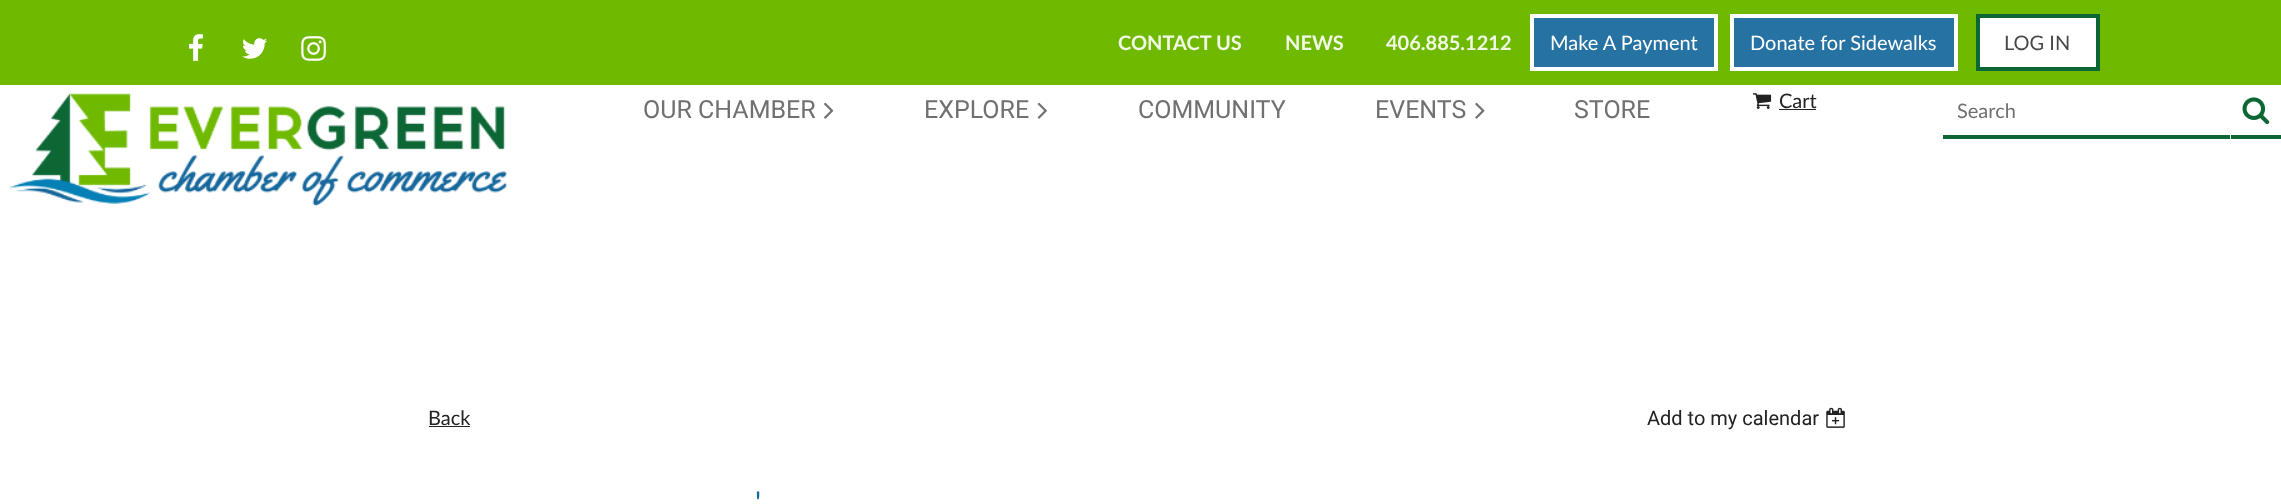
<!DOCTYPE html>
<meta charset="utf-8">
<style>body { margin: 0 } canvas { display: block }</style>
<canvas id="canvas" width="2281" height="504"></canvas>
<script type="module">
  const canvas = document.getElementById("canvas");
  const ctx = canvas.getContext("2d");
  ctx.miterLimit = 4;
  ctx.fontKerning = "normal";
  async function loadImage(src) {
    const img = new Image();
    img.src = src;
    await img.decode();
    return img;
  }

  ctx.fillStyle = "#ffffff";
  ctx.fillRect(0, 0, 2281, 504);
  ctx.fillStyle = "#6fba00";
  ctx.fillRect(0, 0, 2281, 85);
  ctx.drawImage(await loadImage("img1.png"), 189, 34, 14, 27);
  ctx.drawImage(await loadImage("img2.png"), 242, 38, 26, 21);
  ctx.drawImage(await loadImage("img3.png"), 301, 36, 25, 25);
  ctx.font = "bold 20px Lato";
  ctx.fillStyle = "#f1f8e6";
  ctx.fillText("CONTACT US", 1118, 50);
  ctx.fillText("NEWS", 1285, 50);
  ctx.fillText("406.885.1212", 1386, 50);
  ctx.fillStyle = "#2672a3";
  ctx.beginPath();
  ctx.rect(1532, 16, 184, 53);
  ctx.fill();
  ctx.strokeStyle = "#ffffff";
  ctx.lineWidth = 4;
  ctx.stroke();
  ctx.font = "20px Lato";
  ctx.fillStyle = "#ffffff";
  ctx.fillText("Make A Payment", 1550, 50);
  ctx.fillStyle = "#2672a3";
  ctx.beginPath();
  ctx.rect(1732, 16, 224, 53);
  ctx.fill();
  ctx.stroke();
  ctx.fillStyle = "#ffffff";
  ctx.fillText("Donate for Sidewalks", 1750, 50);
  ctx.beginPath();
  ctx.rect(1978, 16, 120, 53);
  ctx.fill();
  ctx.strokeStyle = "#0c6735";
  ctx.stroke();
  ctx.fillStyle = "#484848";
  ctx.fillText("LOG IN", 2004, 50);
  ctx.drawImage(await loadImage("img4.png"), 9, 93, 498, 114);
  ctx.font = "25px Roboto";
  ctx.fillStyle = "#707070";
  ctx.fillText("OUR CHAMBER", 643, 118);
  ctx.drawImage(await loadImage("img5.png"), 824, 102, 10, 17);
  ctx.fillText("EXPLORE", 924, 118);
  ctx.drawImage(await loadImage("img6.png"), 1037, 102, 10, 17);
  ctx.fillText("COMMUNITY", 1138, 118);
  ctx.fillText("EVENTS", 1375, 118);
  ctx.drawImage(await loadImage("img7.png"), 1475, 102, 10, 17);
  ctx.fillText("STORE", 1574, 118);
  ctx.drawImage(await loadImage("img8.png"), 1753, 93, 19, 16);
  ctx.font = "20px Lato";
  ctx.fillStyle = "#222222";
  ctx.fillText("Cart", 1779, 108);
  ctx.fillRect(1779, 109, 37, 1);
  ctx.fillStyle = "#0c6735";
  ctx.fillRect(1943, 135, 287, 4);
  ctx.fillStyle = "#707070";
  ctx.fillText("Search", 1957, 118);
  ctx.fillStyle = "#0c6735";
  ctx.fillRect(2231, 135, 50, 4);
  ctx.drawImage(await loadImage("img9.png"), 2242, 97, 28, 28);
  ctx.fillStyle = "#222222";
  ctx.fillText("Back", 428, 425);
  ctx.fillRect(429, 426, 41, 1);
  ctx.font = "20px Roboto";
  ctx.fillText("Add to my calendar", 1647, 425);
  ctx.drawImage(await loadImage("img10.png"), 1826, 407, 19, 21);
  ctx.font = "30px Lato";
  ctx.fillStyle = "#16679c";
  ctx.fillText("'", 755, 513);
</script>
